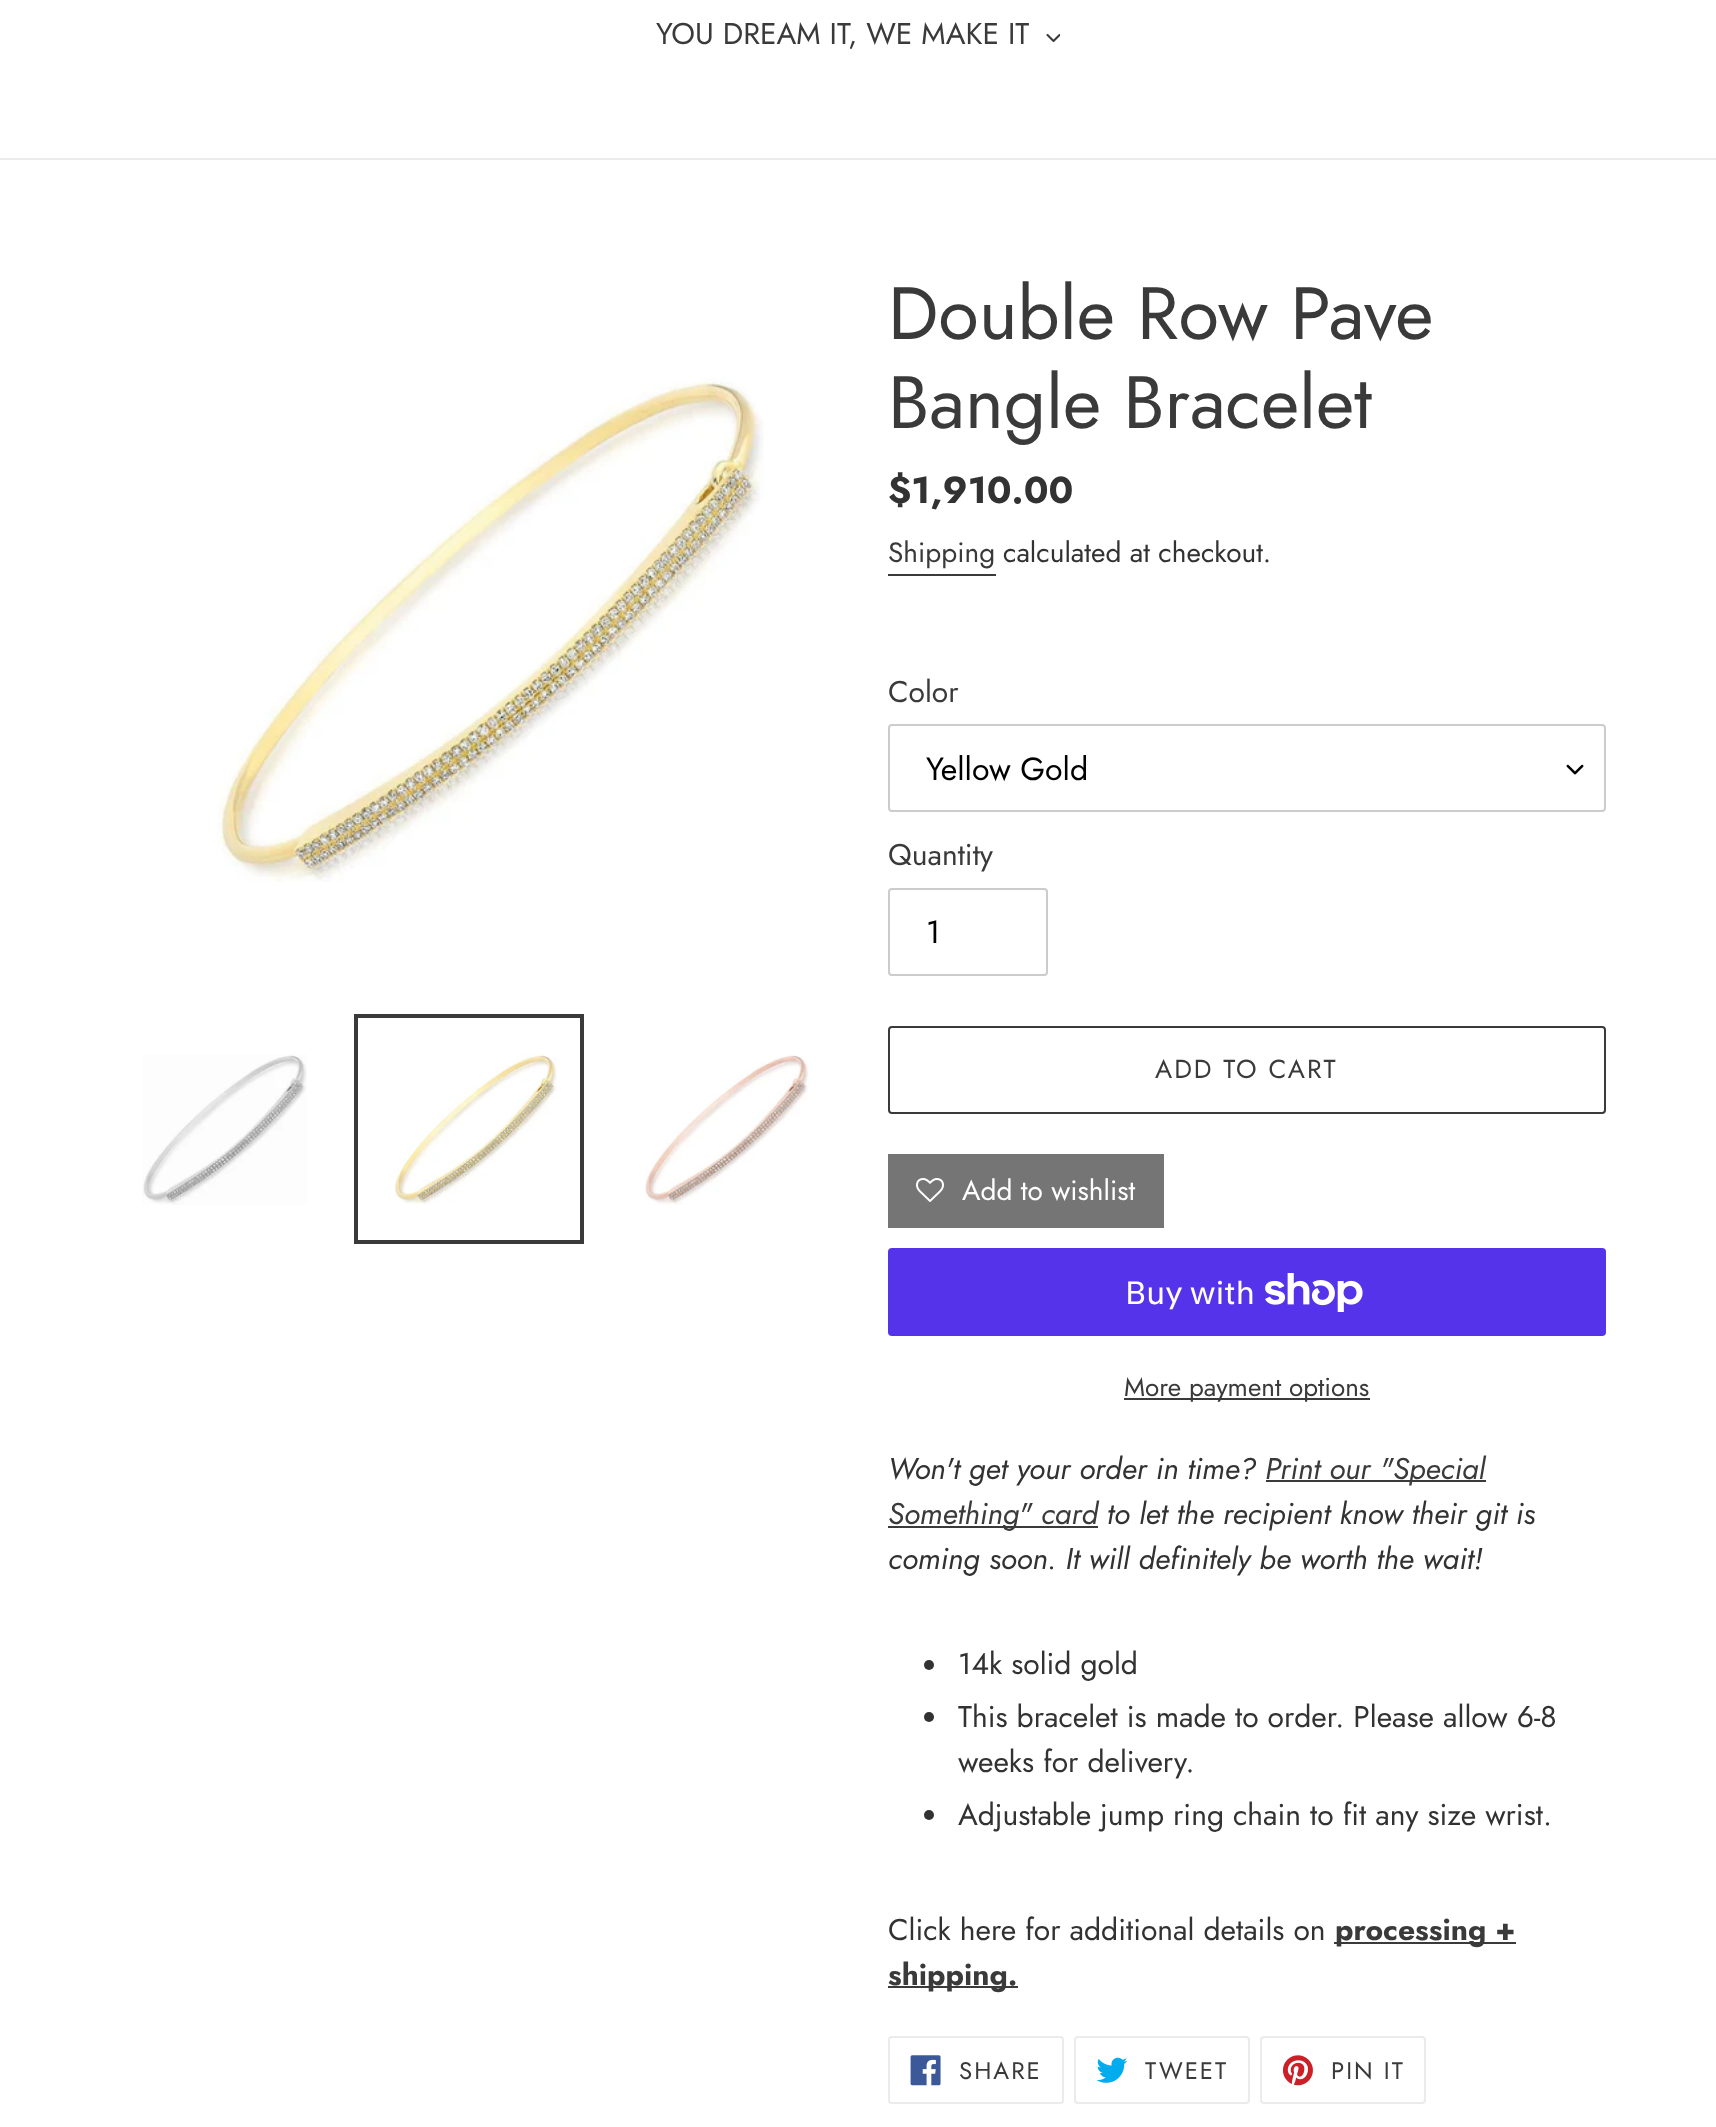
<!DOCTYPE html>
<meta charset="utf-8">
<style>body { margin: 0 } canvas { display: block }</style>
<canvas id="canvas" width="1716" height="2127"></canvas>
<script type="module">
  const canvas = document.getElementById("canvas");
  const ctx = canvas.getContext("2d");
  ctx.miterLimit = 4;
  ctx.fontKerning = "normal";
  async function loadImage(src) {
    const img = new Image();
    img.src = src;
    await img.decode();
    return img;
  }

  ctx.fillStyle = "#ffffff";
  ctx.fillRect(0, 0, 1716, 2127);
  ctx.fillStyle = "#ebebeb";
  ctx.fillRect(0, 158, 1716, 2);
  ctx.font = "30px Jost";
  ctx.fillStyle = "#3a3a3a";
  ctx.fillText("YOU DREAM IT, WE MAKE IT", 656, 44);
  ctx.drawImage(await loadImage("img1.png"), 1046, 34, 14, 8);
  ctx.drawImage(await loadImage("img2.png"), 217, 378, 547, 504);
  ctx.drawImage(await loadImage("img3.png"), 142, 1054, 165, 151);
  ctx.strokeStyle = "#3a3a3a";
  ctx.lineWidth = 4;
  ctx.strokeRect(356, 1016, 226, 226);
  ctx.drawImage(await loadImage("img4.png"), 393, 1054, 164, 150);
  ctx.drawImage(await loadImage("img5.png"), 645, 1055, 164, 150);
  ctx.font = "74px Jost";
  ctx.fillText("Double Row Pave", 888, 339);
  ctx.fillText("Bangle Bracelet", 888, 428);
  ctx.font = "bold 37.5px Jost";
  ctx.fillStyle = "#333232";
  ctx.fillText("$1,910.00", 888, 503);
  ctx.font = "28px Jost";
  ctx.fillStyle = "#3a3a3a";
  ctx.fillText("Shipping", 888, 562);
  ctx.fillRect(888, 574, 108, 2);
  ctx.fillStyle = "#333232";
  ctx.fillText("calculated at checkout.", 1003, 562);
  ctx.font = "30px Jost";
  ctx.fillStyle = "#3a3a3a";
  ctx.fillText("Color", 888, 702);
  ctx.drawImage(await loadImage("img6.png"), 1566, 764, 18, 11);
  ctx.beginPath();
  ctx.roundRect(889, 725, 716, 86, 3);
  ctx.strokeStyle = "#cccccc";
  ctx.lineWidth = 2;
  ctx.stroke();
  ctx.font = "32px Jost";
  ctx.fillStyle = "#000000";
  ctx.fillText("Yellow Gold", 926, 780);
  ctx.font = "30px Jost";
  ctx.fillStyle = "#3a3a3a";
  ctx.fillText("Quantity", 888, 865);
  ctx.beginPath();
  ctx.roundRect(889, 889, 158, 86, 3);
  ctx.stroke();
  ctx.font = "32px Jost";
  ctx.fillStyle = "#000000";
  ctx.fillText("1", 926, 943);
  ctx.beginPath();
  ctx.roundRect(889, 1027, 716, 86, 3);
  ctx.strokeStyle = "#3a3a3a";
  ctx.stroke();
  ctx.letterSpacing = "2px";
  ctx.font = "26px Jost";
  ctx.fillStyle = "#3a3a3a";
  ctx.fillText("ADD TO CART", 1155, 1078);
  ctx.fillStyle = "#757575";
  ctx.fillRect(888, 1154, 276, 74);
  ctx.drawImage(await loadImage("img7.png"), 916, 1178, 28, 24);
  ctx.letterSpacing = "0px";
  ctx.font = "28px Jost";
  ctx.fillStyle = "#ffffff";
  ctx.fillText("Add to wishlist", 962, 1200);
  ctx.fillStyle = "#5433eb";
  ctx.beginPath();
  ctx.roundRect(888, 1248, 718, 88, 4);
  ctx.fill();
  ctx.font = "32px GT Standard";
  ctx.fillStyle = "#ffffff";
  ctx.fillText("Buy with", 1125, 1304);
  ctx.drawImage(await loadImage("img8.png"), 1265, 1273, 98, 39);
  ctx.fillStyle = "#3a3a3a";
  ctx.fillRect(1124, 1398, 246, 2);
  ctx.font = "26px Jost";
  ctx.fillText("More payment options", 1124, 1396);
  ctx.font = "italic 30px Jost";
  ctx.fillStyle = "#333232";
  ctx.fillText("Won't get your order in time?", 888, 1479);
  ctx.fillStyle = "#3a3a3a";
  ctx.fillRect(1266, 1480, 220, 2);
  ctx.fillText("Print our \"Special", 1265, 1479);
  ctx.fillRect(888, 1526, 210, 2);
  ctx.fillText("Something\" card", 888, 1524);
  ctx.fillStyle = "#333232";
  ctx.fillText("to let the recipient know their git is", 1107, 1524);
  ctx.fillText("coming soon. It will definitely be worth the wait!", 888, 1569);
  ctx.beginPath();
  ctx.arc(929, 1665, 5, 0, Math.PI * 2);
  ctx.fill();
  ctx.font = "30px Jost";
  ctx.fillText("14k solid gold", 958, 1674);
  ctx.beginPath();
  ctx.arc(929, 1717, 5, 0, Math.PI * 2);
  ctx.fill();
  ctx.fillText("This bracelet is made to order. Please allow 6-8", 958, 1727);
  ctx.fillText("weeks for delivery.", 958, 1772);
  ctx.beginPath();
  ctx.arc(929, 1815, 5, 0, Math.PI * 2);
  ctx.fill();
  ctx.fillText("Adjustable jump ring chain to fit any size wrist.", 958, 1825);
  ctx.fillText("Click here for additional details on", 888, 1940);
  ctx.fillStyle = "#3a3a3a";
  ctx.fillRect(1334, 1942, 182, 2);
  ctx.font = "bold 30px Jost";
  ctx.fillText("processing +", 1335, 1940);
  ctx.fillRect(888, 1986, 130, 2);
  ctx.fillText("shipping.", 888, 1985);
  ctx.beginPath();
  ctx.roundRect(889, 2037, 174, 66, 3);
  ctx.strokeStyle = "#ebebeb";
  ctx.stroke();
  ctx.drawImage(await loadImage("img9.png"), 910, 2055, 31, 31);
  ctx.letterSpacing = "2px";
  ctx.font = "24px Jost";
  ctx.fillText("SHARE", 959, 2079);
  ctx.beginPath();
  ctx.roundRect(1075, 2037, 174, 66, 3);
  ctx.stroke();
  ctx.drawImage(await loadImage("img10.png"), 1096, 2057, 32, 26);
  ctx.fillText("TWEET", 1145, 2079);
  ctx.beginPath();
  ctx.roundRect(1261, 2037, 164, 66, 3);
  ctx.stroke();
  ctx.drawImage(await loadImage("img11.png"), 1282, 2055, 31, 31);
  ctx.fillText("PIN IT", 1331, 2079);
</script>
